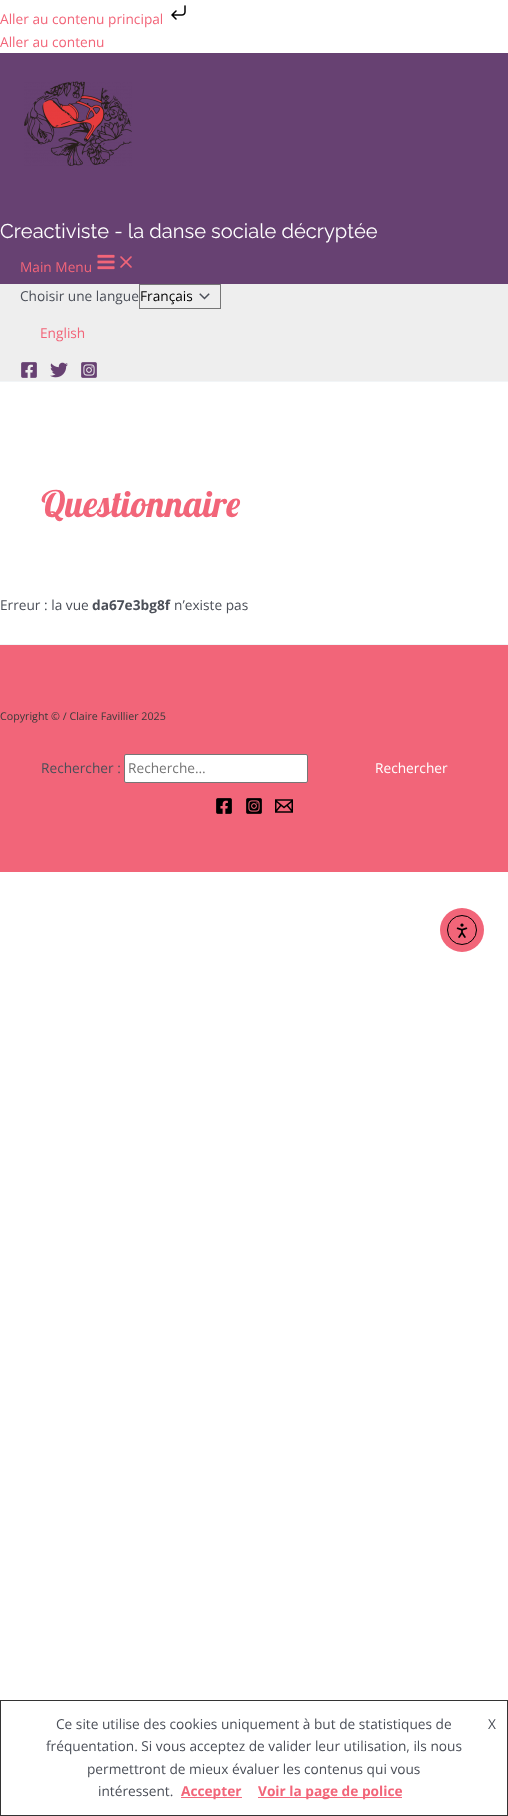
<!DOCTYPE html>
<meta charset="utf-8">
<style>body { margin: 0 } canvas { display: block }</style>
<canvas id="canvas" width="508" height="1816"></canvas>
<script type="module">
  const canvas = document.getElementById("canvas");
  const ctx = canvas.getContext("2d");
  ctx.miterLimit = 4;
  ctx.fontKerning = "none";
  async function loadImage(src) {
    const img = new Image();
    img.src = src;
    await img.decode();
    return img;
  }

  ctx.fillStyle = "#ffffff";
  ctx.fillRect(0, 0, 508, 1816);
  ctx.font = "13.7px Open Sans";
  ctx.fillStyle = "#f26579";
  ctx.fillText("Aller au contenu principal", 0, 24);
  ctx.drawImage(await loadImage("img1.png"), 171, 5, 15, 15);
  ctx.fillText("Aller au contenu", 0, 47);
  ctx.fillStyle = "#674172";
  ctx.fillRect(0, 53, 508, 231);
  ctx.drawImage(await loadImage("img2.png"), 24, 81, 108, 85);
  ctx.font = "20.1px Raleway";
  ctx.fillStyle = "#ffffff";
  ctx.fillText("Creactiviste - la danse sociale décryptée", 0, 238);
  ctx.font = "13.7px Open Sans";
  ctx.fillStyle = "#f26579";
  ctx.fillText("Main Menu", 20, 272);
  ctx.drawImage(await loadImage("img3.png"), 97, 254, 18, 16);
  ctx.drawImage(await loadImage("img4.png"), 120, 256, 12, 12);
  ctx.fillStyle = "#eeeeee";
  ctx.fillRect(0, 284, 508, 97);
  ctx.fillStyle = "#f2f5f7";
  ctx.fillRect(0, 381, 508, 1);
  ctx.fillStyle = "#4b4f58";
  ctx.fillText("Choisir une langue", 20, 301);
  ctx.drawImage(await loadImage("img5.png"), 199, 293, 11, 7);
  ctx.strokeStyle = "#767676";
  ctx.strokeRect(139.5, 284.5, 81, 24);
  ctx.fillStyle = "#000000";
  ctx.fillText("Français", 140, 301);
  ctx.fillStyle = "#f26579";
  ctx.fillText("English", 40, 338);
  ctx.drawImage(await loadImage("img6.png"), 21, 362, 16, 16);
  ctx.drawImage(await loadImage("img7.png"), 50, 362, 18, 16);
  ctx.drawImage(await loadImage("img8.png"), 81, 362, 16, 16);
  ctx.font = "36.5px Lobster";
  ctx.fillText("Questionnaire", 41, 517);
  ctx.font = "13.7px Open Sans";
  ctx.fillStyle = "#4b4f58";
  ctx.fillText("Erreur : la vue", 0, 610);
  ctx.font = "bold 13.7px Open Sans";
  ctx.fillText("da67e3bg8f", 92, 610);
  ctx.font = "13.7px Open Sans";
  ctx.fillText("n’existe pas", 174, 610);
  ctx.fillStyle = "#f26579";
  ctx.fillRect(0, 645, 508, 227);
  ctx.fillStyle = "#f2f5f7";
  ctx.fillRect(0, 644, 508, 1);
  ctx.font = "10.7px Open Sans";
  ctx.fillStyle = "#3a3a3a";
  ctx.fillText("Copyright © / Claire Favillier 2025", 0, 720);
  ctx.font = "13.7px Open Sans";
  ctx.fillStyle = "#4b4f58";
  ctx.fillText("Rechercher :", 41, 773);
  ctx.fillStyle = "#ffffff";
  ctx.beginPath();
  ctx.roundRect(124.5, 754.5, 183, 28, 1.5);
  ctx.fill();
  ctx.stroke();
  ctx.fillStyle = "#757575";
  ctx.fillText("Recherche…", 128, 773);
  ctx.fillStyle = "#ffffff";
  ctx.fillText("Rechercher", 375, 773);
  ctx.drawImage(await loadImage("img9.png"), 216, 798, 16, 16);
  ctx.drawImage(await loadImage("img10.png"), 246, 798, 16, 16);
  ctx.drawImage(await loadImage("img11.png"), 275, 799, 18, 14);
  ctx.fillStyle = "#f26579";
  ctx.beginPath();
  ctx.arc(462, 930, 22, 0, Math.PI * 2);
  ctx.fill();
  ctx.beginPath();
  ctx.arc(462, 930, 14.5, 0, Math.PI * 2);
  ctx.strokeStyle = "#000000";
  ctx.stroke();
  ctx.drawImage(await loadImage("img12.png"), 456, 923, 12, 15);
  ctx.strokeStyle = "#333333";
  ctx.strokeRect(0.5, 1700.5, 507, 115);
  ctx.fillStyle = "#4b4f58";
  ctx.fillText("Ce site utilise des cookies uniquement à but de statistiques de", 56, 1729);
  ctx.fillText("X", 488, 1729);
  ctx.fillText("fréquentation. Si vous acceptez de valider leur utilisation, ils nous", 46, 1751);
  ctx.fillText("permettront de mieux évaluer les contenus qui vous", 87, 1774);
  ctx.fillText("intéressent.", 98, 1796);
  ctx.fillStyle = "#f26579";
  ctx.fillRect(181, 1797, 61, 1);
  ctx.font = "bold 13.7px Open Sans";
  ctx.fillText("Accepter", 181, 1796);
  ctx.fillRect(258, 1797, 144, 1);
  ctx.fillText("Voir la page de police", 258, 1796);
</script>
